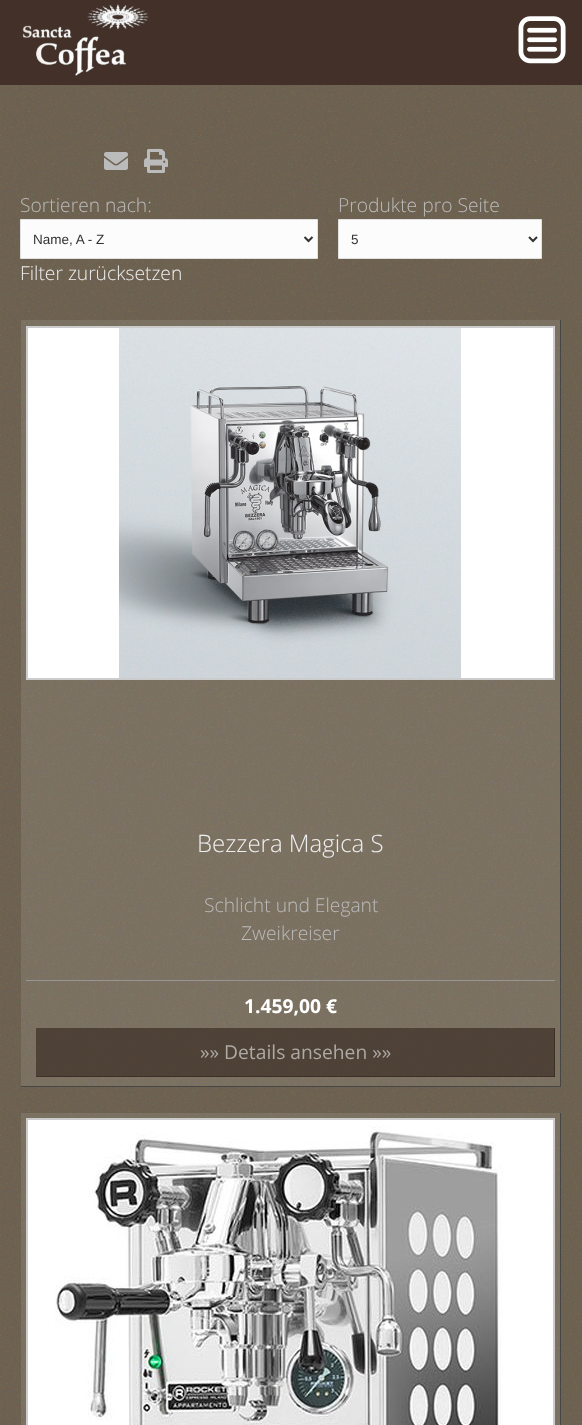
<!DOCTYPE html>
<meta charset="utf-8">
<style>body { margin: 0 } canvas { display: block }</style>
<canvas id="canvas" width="582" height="1425"></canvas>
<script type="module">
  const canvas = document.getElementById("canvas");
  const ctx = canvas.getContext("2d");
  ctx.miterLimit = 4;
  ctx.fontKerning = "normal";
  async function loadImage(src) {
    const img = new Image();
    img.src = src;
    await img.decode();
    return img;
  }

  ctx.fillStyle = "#6d6150";
  ctx.fillRect(0, 0, 582, 1425);
  ctx.fillStyle = "#423029";
  ctx.fillRect(0, 0, 582, 85);
  ctx.drawImage(await loadImage("img1.png"), 22, 4, 127, 72);
  ctx.drawImage(await loadImage("img2.png"), 518, 16, 48, 48);
  ctx.drawImage(await loadImage("img3.png"), 0, 85, 582, 1340);
  ctx.drawImage(await loadImage("img4.png"), 104, 152, 24, 18);
  ctx.drawImage(await loadImage("img5.png"), 144, 149, 24, 24);
  ctx.font = "300 19.25px Open Sans";
  ctx.fillStyle = "#bbbbbb";
  ctx.fillText("Sortieren nach:", 20, 212);
  ctx.fillStyle = "#fcfcfc";
  ctx.beginPath();
  ctx.rect(20.5, 219.5, 297, 39);
  ctx.fill();
  ctx.strokeStyle = "#e1e1e1";
  ctx.stroke();
  ctx.beginPath();
  ctx.moveTo(304.5, 237);
  ctx.lineTo(308.5, 241);
  ctx.lineTo(312.5, 237);
  ctx.strokeStyle = "#333333";
  ctx.lineWidth = 2;
  ctx.stroke();
  ctx.font = "13.5px Liberation Sans";
  ctx.fillStyle = "#333333";
  ctx.fillText("Name, A - Z", 33, 244);
  ctx.font = "300 19.25px Open Sans";
  ctx.fillStyle = "#bbbbbb";
  ctx.fillText("Produkte pro Seite", 338, 212);
  ctx.fillStyle = "#fcfcfc";
  ctx.beginPath();
  ctx.rect(338.5, 219.5, 203, 39);
  ctx.fill();
  ctx.strokeStyle = "#e1e1e1";
  ctx.lineWidth = 1;
  ctx.stroke();
  ctx.beginPath();
  ctx.moveTo(529, 237);
  ctx.lineTo(533, 241);
  ctx.lineTo(537, 237);
  ctx.strokeStyle = "#333333";
  ctx.lineWidth = 2;
  ctx.stroke();
  ctx.font = "13.5px Liberation Sans";
  ctx.fillStyle = "#333333";
  ctx.fillText("5", 351, 244);
  ctx.font = "300 19.25px Open Sans";
  ctx.fillStyle = "#eeeeee";
  ctx.fillText("Filter zurücksetzen", 20, 280);
  ctx.fillStyle = "rgba(255, 255, 255, 0.1)";
  ctx.fillRect(21, 320, 539, 766);
  ctx.fillStyle = "#464646";
  ctx.fillRect(560, 320, 1, 767);
  ctx.fillRect(21, 1086, 540, 1);
  ctx.fillStyle = "#ffffff";
  ctx.beginPath();
  ctx.rect(27, 327, 527, 352);
  ctx.fill();
  ctx.strokeStyle = "#cccccc";
  ctx.stroke();
  ctx.drawImage(await loadImage("img6.png"), 119, 328, 342, 350);
  ctx.font = "300 24px Open Sans";
  ctx.fillStyle = "#eeeeee";
  ctx.fillText("Bezzera Magica S", 197, 852);
  ctx.font = "300 19.25px Open Sans";
  ctx.fillStyle = "#bbbbbb";
  ctx.fillText("Schlicht und Elegant", 204, 912);
  ctx.fillText("Zweikreiser", 241, 940);
  ctx.fillStyle = "#969696";
  ctx.fillRect(26, 980, 529, 1);
  ctx.font = "bold 19.25px Open Sans";
  ctx.fillStyle = "#ffffff";
  ctx.fillText("1.459,00 €", 244, 1013);
  ctx.fillStyle = "rgba(48, 35, 27, 0.6)";
  ctx.fillRect(36, 1028, 519, 49);
  ctx.fillRect(554, 1028, 1, 49);
  ctx.fillRect(36, 1076, 519, 1);
  ctx.font = "19.25px Open Sans";
  ctx.fillStyle = "#aea9a5";
  ctx.fillText("»» Details ansehen »»", 200, 1059);
  ctx.fillStyle = "rgba(255, 255, 255, 0.1)";
  ctx.fillRect(21, 1113, 539, 312);
  ctx.fillStyle = "#464646";
  ctx.fillRect(560, 1113, 1, 312);
  ctx.fillStyle = "#ffffff";
  ctx.beginPath();
  ctx.rect(27, 1119, 527, 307);
  ctx.fill();
  ctx.stroke();
  ctx.drawImage(await loadImage("img7.png"), 55, 1125, 448, 300);
</script>
